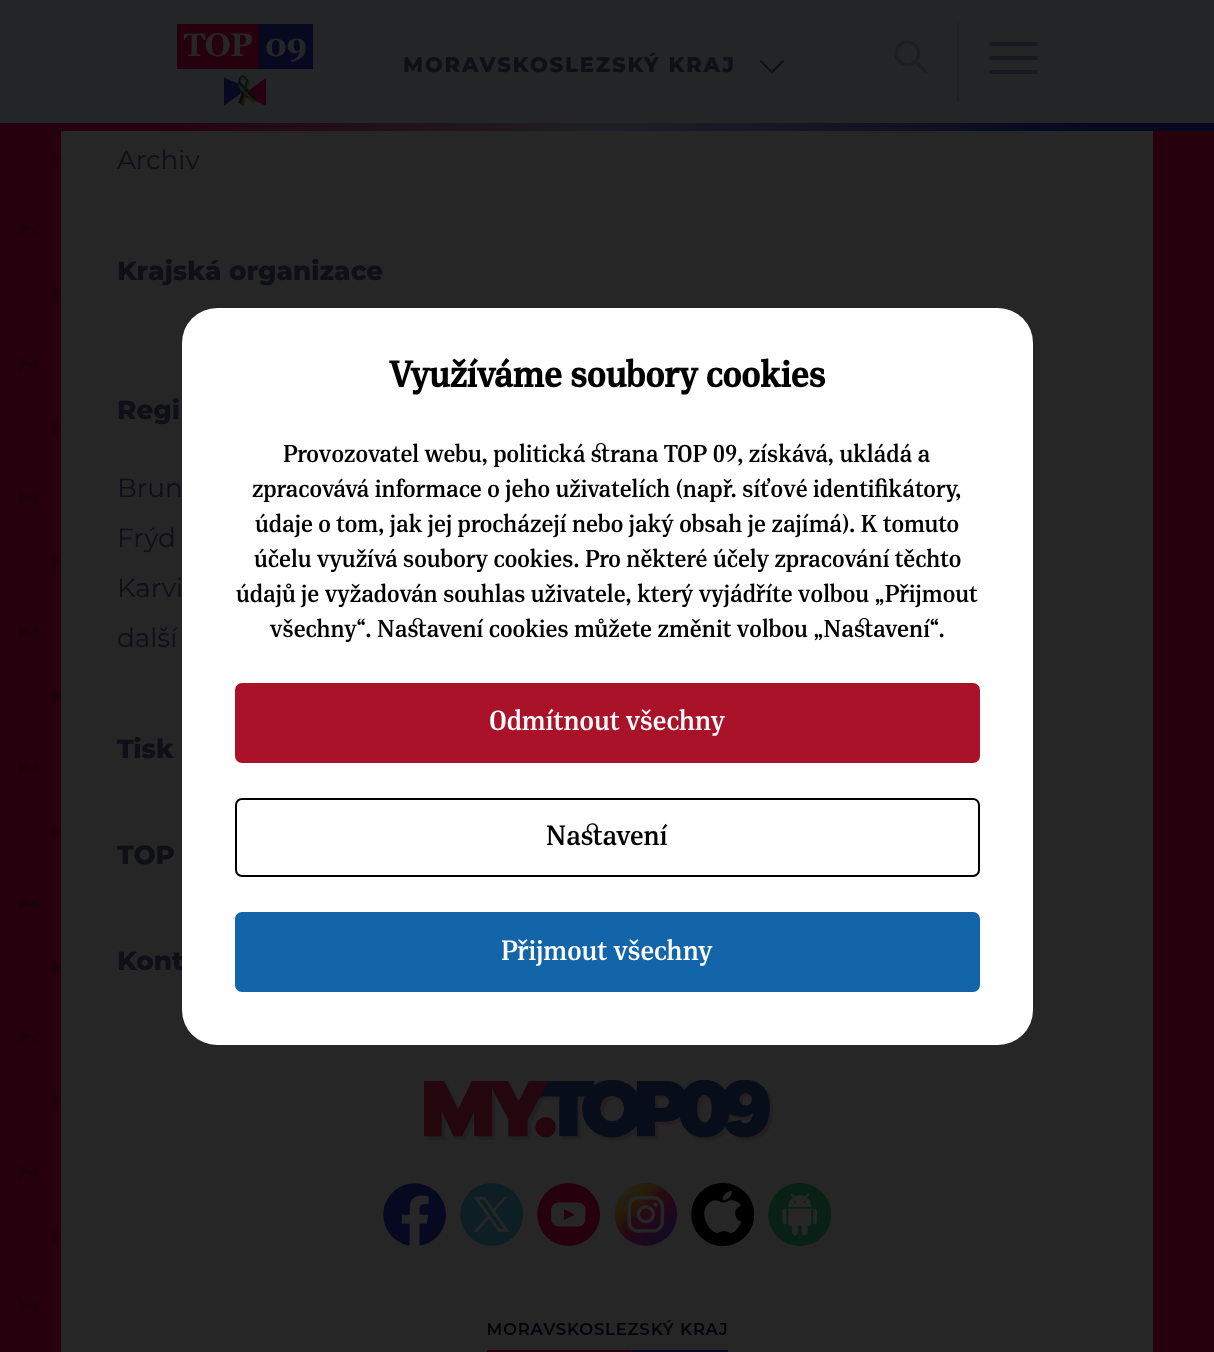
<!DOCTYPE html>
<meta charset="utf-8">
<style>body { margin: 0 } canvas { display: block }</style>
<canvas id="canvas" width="1214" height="1352"></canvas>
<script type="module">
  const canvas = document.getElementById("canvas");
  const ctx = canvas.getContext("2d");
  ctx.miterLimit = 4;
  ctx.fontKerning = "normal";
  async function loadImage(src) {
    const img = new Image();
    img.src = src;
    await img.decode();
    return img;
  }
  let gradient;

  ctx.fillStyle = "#ffffff";
  ctx.fillRect(0, 0, 1214, 1352);
  ctx.fillStyle = "#26000c";
  ctx.beginPath();
  ctx.moveTo(0, -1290);
  ctx.lineTo(0, 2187);
  ctx.lineTo(1214, 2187);
  ctx.lineTo(1214, -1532);
  ctx.closePath();
  ctx.fill();
  ctx.fillStyle = "#242526";
  ctx.fillRect(0, 0, 1214, 123);
  ctx.drawImage(await loadImage("img1.png"), 177, 24, 136, 82);
  ctx.save();
  ctx.beginPath();
  ctx.rect(403, 53, 381, 24);
  ctx.clip();
  ctx.letterSpacing = "1.9px";
  ctx.font = "800 21px Montserrat";
  ctx.fillStyle = "#0e0f17";
  ctx.fillText("MORAVSKOSLEZSKÝ KRAJ", 403, 72);
  ctx.restore();
  ctx.fillStyle = "#0e0f17";
  ctx.beginPath();
  ctx.moveTo(783, 60);
  ctx.lineTo(784.5, 61);
  ctx.lineTo(772, 73.5);
  ctx.lineTo(770.5, 72);
  ctx.closePath();
  ctx.fill();
  ctx.beginPath();
  ctx.moveTo(761, 60);
  ctx.lineTo(773, 72);
  ctx.lineTo(772, 73.5);
  ctx.lineTo(759.5, 61);
  ctx.closePath();
  ctx.fill();
  ctx.fillStyle = "#1d1f24";
  ctx.fillRect(957, 23, 2, 79);
  ctx.drawImage(await loadImage("img2.png"), 894, 40, 33, 33);
  ctx.fillStyle = "#171822";
  ctx.beginPath();
  ctx.roundRect(989, 56, 49, 4, 2);
  ctx.fill();
  ctx.beginPath();
  ctx.roundRect(989, 42, 49, 4, 2);
  ctx.fill();
  ctx.beginPath();
  ctx.roundRect(989, 70, 49, 4, 2);
  ctx.fill();
  gradient = ctx.createLinearGradient(0, 127, 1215, 127);
  gradient.addColorStop(0.1, "#26000c");
  gradient.addColorStop(0.5, "#1d1f24");
  gradient.addColorStop(0.9, "#060920");
  ctx.fillStyle = gradient;
  ctx.fillRect(161, 123, 1053, 8);
  ctx.drawImage(await loadImage("img3.png"), 19, 151, 42, 1163);
  ctx.fillStyle = "#262626";
  ctx.fillRect(61, 131, 1092, 1221);
  ctx.font = "26.25px Montserrat";
  ctx.fillStyle = "#0e0f17";
  ctx.fillText("Archiv", 117, 169);
  ctx.font = "800 26.25px Montserrat";
  ctx.fillText("Krajská organizace", 117, 280);
  ctx.fillText("Regi", 117, 419);
  ctx.font = "26.25px Montserrat";
  ctx.fillText("Brun", 117, 497);
  ctx.fillText("Frýd", 117, 547);
  ctx.fillText("Karvi", 117, 597);
  ctx.fillText("další", 117, 647);
  ctx.font = "800 26.25px Montserrat";
  ctx.fillText("Tisk", 117, 758);
  ctx.fillText("TOP", 117, 864);
  ctx.fillText("Kont", 117, 970);
  ctx.drawImage(await loadImage("img4.png"), 424, 1080, 350, 61);
  ctx.drawImage(await loadImage("img5.png"), 383, 1183, 63, 63);
  ctx.drawImage(await loadImage("img6.png"), 460, 1183, 63, 63);
  ctx.drawImage(await loadImage("img7.png"), 537, 1183, 63, 63);
  ctx.drawImage(await loadImage("img8.png"), 614, 1183, 63, 63);
  ctx.drawImage(await loadImage("img9.png"), 691, 1183, 63, 63);
  ctx.drawImage(await loadImage("img10.png"), 768, 1183, 63, 63);
  ctx.drawImage(await loadImage("img11.png"), 487, 1320, 241, 32);
  ctx.fillStyle = "#ffffff";
  ctx.beginPath();
  ctx.roundRect(182, 308, 851, 737, 35);
  ctx.fill();
  ctx.font = "bold 36.75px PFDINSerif";
  ctx.fillStyle = "#000000";
  ctx.fillText("Využíváme soubory cookies", 389, 387);
  ctx.font = "500 24.5px PFDINSerif";
  ctx.fillText("Provozovatel webu, politická strana TOP 09, získává, ukládá a", 283, 462);
  ctx.fillText("zpracovává informace o jeho uživatelích (např. síťové identifikátory,", 252, 497);
  ctx.fillText("údaje o tom, jak jej procházejí nebo jaký obsah je zajímá). K tomuto", 255, 532);
  ctx.fillText("účelu využívá soubory cookies. Pro některé účely zpracování těchto", 254, 567);
  ctx.fillText("údajů je vyžadován souhlas uživatele, který vyjádříte volbou „Přijmout", 236, 602);
  ctx.fillText("všechny“. Nastavení cookies můžete změnit volbou „Nastavení“.", 270, 637);
  ctx.fillStyle = "#a91229";
  ctx.beginPath();
  ctx.roundRect(236, 684, 743, 78, 6);
  ctx.fill();
  ctx.strokeStyle = "#a91229";
  ctx.lineWidth = 2;
  ctx.stroke();
  ctx.font = "500 28px PFDINSerif";
  ctx.fillStyle = "#ffffff";
  ctx.fillText("Odmítnout všechny", 489, 730);
  ctx.beginPath();
  ctx.roundRect(236, 799, 743, 77, 6);
  ctx.strokeStyle = "#000000";
  ctx.stroke();
  ctx.fillStyle = "#000000";
  ctx.fillText("Nastavení", 546, 845);
  ctx.fillStyle = "#1265a9";
  ctx.beginPath();
  ctx.roundRect(236, 913, 743, 78, 6);
  ctx.fill();
  ctx.strokeStyle = "#1265a9";
  ctx.stroke();
  ctx.fillStyle = "#ffffff";
  ctx.fillText("Přijmout všechny", 501, 960);
</script>
